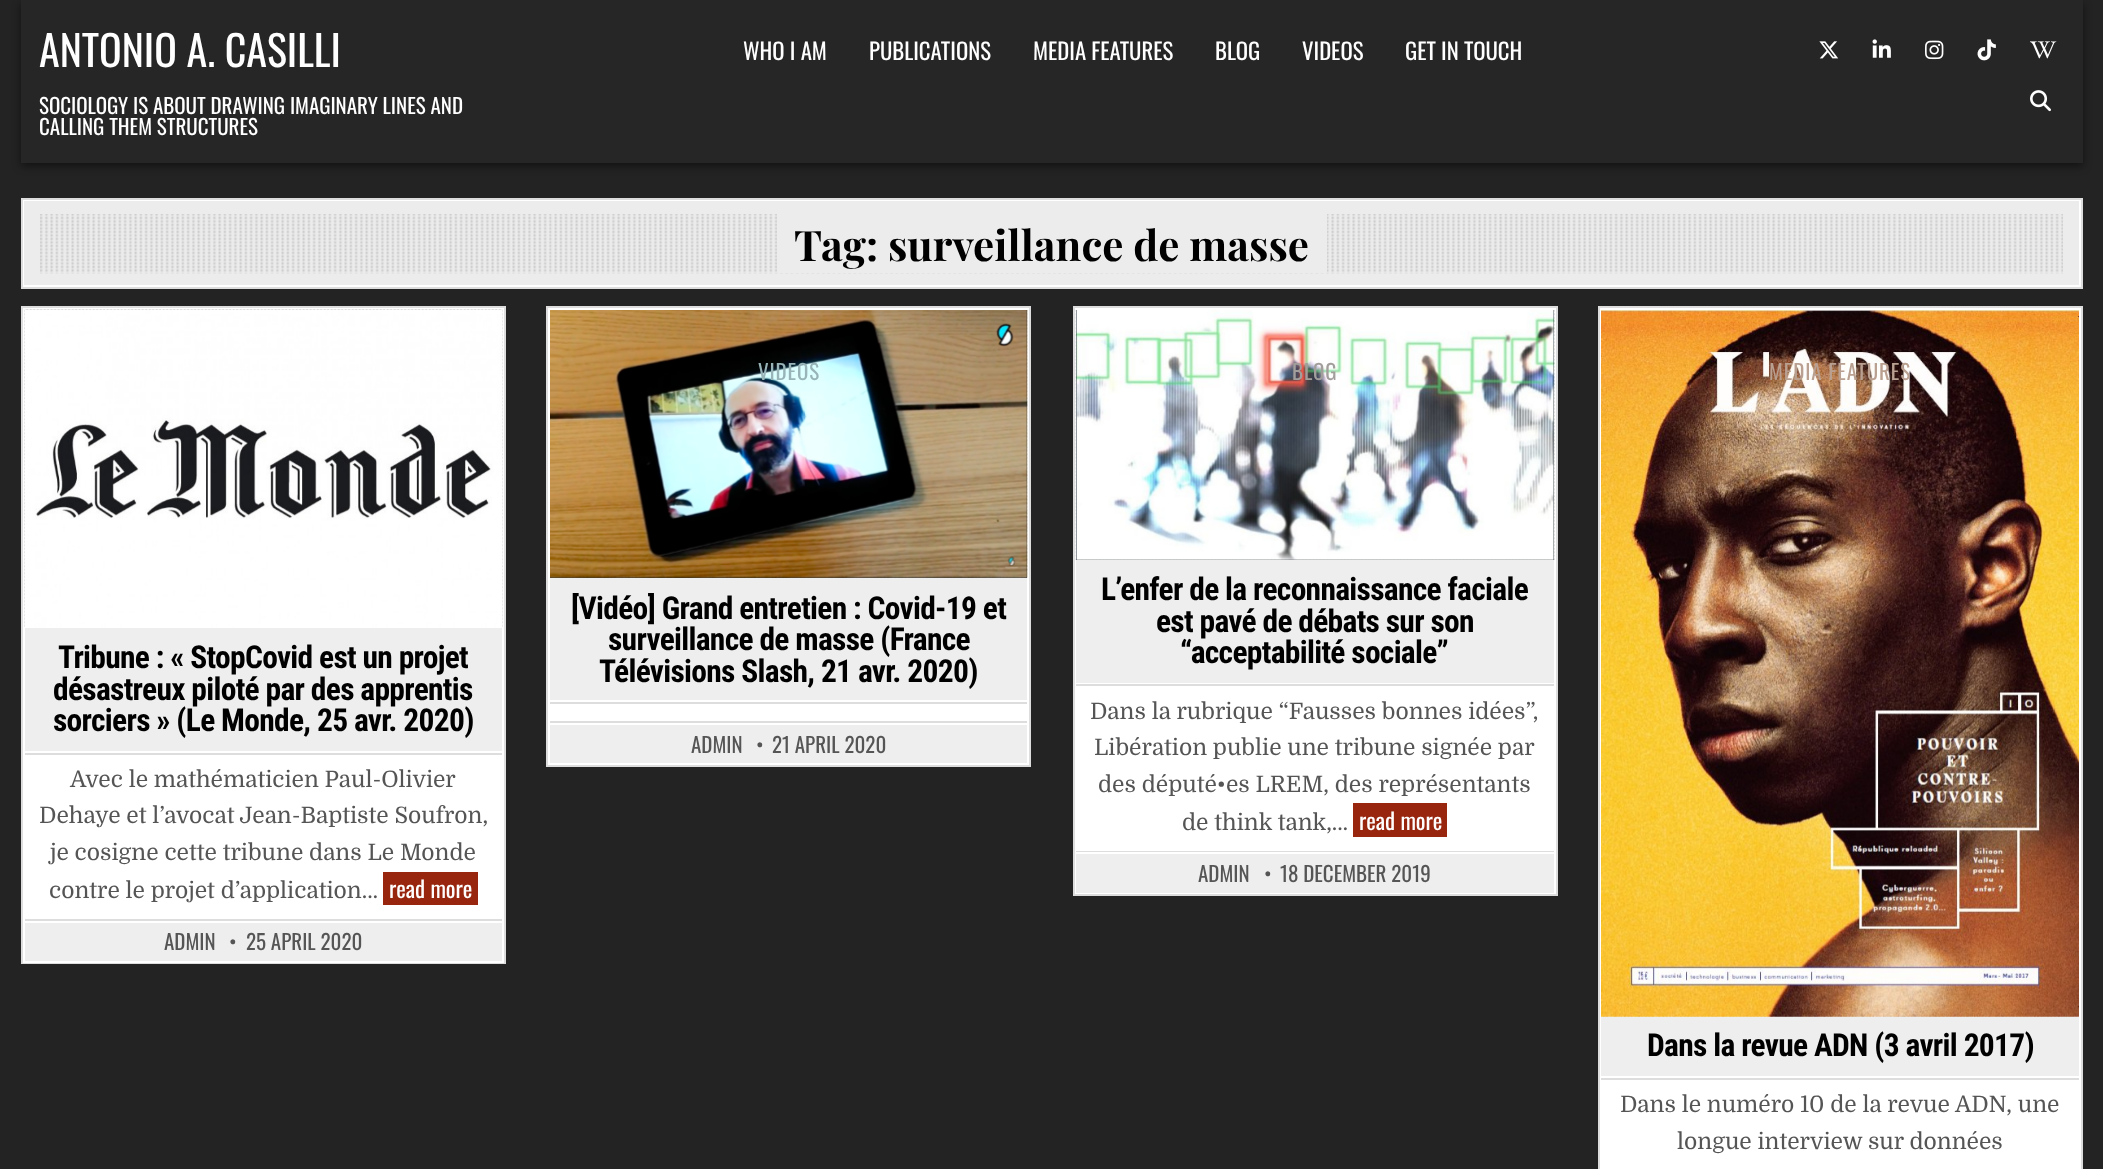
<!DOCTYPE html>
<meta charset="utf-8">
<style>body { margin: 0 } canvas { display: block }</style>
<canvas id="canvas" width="2103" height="1169"></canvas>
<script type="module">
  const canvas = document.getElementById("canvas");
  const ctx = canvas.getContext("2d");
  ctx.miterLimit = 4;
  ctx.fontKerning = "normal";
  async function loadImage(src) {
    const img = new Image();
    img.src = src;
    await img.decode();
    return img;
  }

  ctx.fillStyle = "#232323";
  ctx.fillRect(0, 0, 2103, 1169);
  ctx.fillStyle = "rgba(0, 0, 0, 0.5)";
  ctx.filter = "blur(4.5px)";
  ctx.beginPath();
  ctx.rect(21, 4, 2062, 162);
  ctx.fill();
  ctx.filter = "none";
  ctx.fillStyle = "#262626";
  ctx.fillRect(21, 0, 2062, 163);
  ctx.font = "42px Oswald";
  ctx.fillStyle = "#ffffff";
  ctx.fillText("ANTONIO A. CASILLI", 39, 67);
  ctx.font = "21px Oswald";
  ctx.fillText("SOCIOLOGY IS ABOUT DRAWING IMAGINARY LINES AND", 39, 114);
  ctx.fillText("CALLING THEM STRUCTURES", 39, 135);
  ctx.font = "22.75px Oswald";
  ctx.fillText("WHO I AM", 743, 60);
  ctx.fillText("PUBLICATIONS", 869, 60);
  ctx.fillText("MEDIA FEATURES", 1033, 60);
  ctx.fillText("BLOG", 1215, 60);
  ctx.fillText("VIDEOS", 1302, 60);
  ctx.fillText("GET IN TOUCH", 1405, 60);
  ctx.drawImage(await loadImage("img1.png"), 1819, 41, 20, 18);
  ctx.drawImage(await loadImage("img2.png"), 1872, 39, 19, 19);
  ctx.drawImage(await loadImage("img3.png"), 1925, 40, 19, 20);
  ctx.drawImage(await loadImage("img4.png"), 1977, 39, 19, 22);
  ctx.drawImage(await loadImage("img5.png"), 2030, 41, 27, 18);
  ctx.drawImage(await loadImage("img6.png"), 2030, 90, 21, 22);
  ctx.fillStyle = "#ececec";
  ctx.fillRect(24, 201, 2055, 84);
  ctx.save();
  ctx.beginPath();
  ctx.rect(23, 200, 2058, 87);
  ctx.clip();
  ctx.fillStyle = "#ffffff";
  ctx.beginPath();
  ctx.moveTo(-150, 26);
  ctx.lineTo(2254, 26);
  ctx.lineTo(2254, 460);
  ctx.lineTo(-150, 460);
  ctx.closePath();
  ctx.moveTo(21, 198);
  ctx.lineTo(2079, 198);
  ctx.lineTo(2079, 285);
  ctx.lineTo(21, 285);
  ctx.closePath();
  ctx.fill("evenodd");
  ctx.beginPath();
  ctx.moveTo(-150, 26);
  ctx.lineTo(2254, 26);
  ctx.lineTo(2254, 460);
  ctx.lineTo(-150, 460);
  ctx.closePath();
  ctx.moveTo(24, 201);
  ctx.lineTo(2082, 201);
  ctx.lineTo(2082, 289);
  ctx.lineTo(24, 289);
  ctx.closePath();
  ctx.fill("evenodd");
  ctx.restore();
  ctx.strokeStyle = "#dddddd";
  ctx.lineWidth = 2;
  ctx.strokeRect(22, 199, 2060, 89);
  ctx.drawImage(await loadImage("img7.png"), 40, 214, 2023, 60);
  ctx.fillRect(777, 214, 550, 59);
  ctx.font = "bold 42px Playfair Display";
  ctx.fillStyle = "#000000";
  ctx.fillText("Tag: surveillance de masse", 794, 261);
  ctx.fillStyle = "#ffffff";
  ctx.fillRect(25, 751, 477, 168);
  ctx.strokeRect(22, 307, 483, 656);
  ctx.strokeStyle = "#ffffff";
  ctx.strokeRect(24, 309, 479, 653);
  ctx.drawImage(await loadImage("img8.png"), 24, 309, 479, 318);
  ctx.drawImage(await loadImage("img9.png"), 25, 310, 477, 318);
  ctx.fillStyle = "#eeeeee";
  ctx.fillRect(25, 628, 477, 123);
  ctx.letterSpacing = "-0.7px";
  ctx.font = "bold 31.5px Roboto Condensed";
  ctx.fillStyle = "#000000";
  ctx.fillText("Tribune : « StopCovid est un projet", 58, 668);
  ctx.fillText("désastreux piloté par des apprentis", 53, 700);
  ctx.fillText("sorciers » (Le Monde, 25 avr. 2020)", 53, 731);
  ctx.fillStyle = "#dddddd";
  ctx.fillRect(25, 753, 477, 2);
  ctx.letterSpacing = "0px";
  ctx.font = "22.75px Domine";
  ctx.fillStyle = "#555555";
  ctx.fillText("Avec le mathématicien Paul-Olivier", 70, 787);
  ctx.fillText("Dehaye et l’avocat Jean-Baptiste Soufron,", 39, 823);
  ctx.fillText("je cosigne cette tribune dans Le Monde", 50, 860);
  ctx.fillText("contre le projet d’application…", 49, 898);
  ctx.fillStyle = "#98250e";
  ctx.fillRect(383, 872, 95, 33);
  ctx.font = "22.75px Oswald";
  ctx.fillStyle = "#ffffff";
  ctx.fillText("read more", 389, 898);
  ctx.fillStyle = "#eeeeee";
  ctx.fillRect(25, 923, 477, 38);
  ctx.fillStyle = "#dddddd";
  ctx.fillRect(25, 919, 477, 2);
  ctx.fillStyle = "#ffffff";
  ctx.fillRect(25, 921, 477, 2);
  ctx.font = "21px Oswald";
  ctx.fillStyle = "#555555";
  ctx.fillText("ADMIN", 164, 950);
  ctx.fillText("•", 229, 950);
  ctx.fillText("25 APRIL 2020", 246, 950);
  ctx.fillStyle = "#ffffff";
  ctx.beginPath();
  ctx.rect(547, 307, 483, 459);
  ctx.fill();
  ctx.strokeStyle = "#dddddd";
  ctx.stroke();
  ctx.fillStyle = "#1e2b34";
  ctx.fillRect(550, 310, 477, 268);
  ctx.drawImage(await loadImage("img10.png"), 550, 310, 478, 268);
  ctx.drawImage(await loadImage("img11.png"), 550, 310, 478, 268);
  ctx.letterSpacing = "0.9px";
  ctx.fillStyle = "#98b4b8";
  ctx.fillText("VIDEOS", 758, 380);
  ctx.fillStyle = "#eeeeee";
  ctx.fillRect(550, 578, 477, 122);
  ctx.letterSpacing = "-0.7px";
  ctx.font = "bold 31.5px Roboto Condensed";
  ctx.fillStyle = "#000000";
  ctx.fillText("[Vidéo] Grand entretien : Covid-19 et", 571, 619);
  ctx.fillText("surveillance de masse (France", 608, 650);
  ctx.fillText("Télévisions Slash, 21 avr. 2020)", 599, 682);
  ctx.fillStyle = "#dddddd";
  ctx.fillRect(550, 702, 477, 2);
  ctx.fillStyle = "#eeeeee";
  ctx.fillRect(550, 725, 477, 38);
  ctx.fillStyle = "#dddddd";
  ctx.fillRect(550, 721, 477, 2);
  ctx.letterSpacing = "0px";
  ctx.font = "21px Oswald";
  ctx.fillStyle = "#555555";
  ctx.fillText("ADMIN", 691, 753);
  ctx.fillText("•", 756, 753);
  ctx.fillText("21 APRIL 2020", 772, 753);
  ctx.fillStyle = "#ffffff";
  ctx.beginPath();
  ctx.rect(1074, 307, 483, 588);
  ctx.fill();
  ctx.stroke();
  ctx.fillStyle = "#1e2b34";
  ctx.fillRect(1076, 310, 478, 250);
  ctx.drawImage(await loadImage("img12.png"), 1075, 310, 480, 250);
  ctx.drawImage(await loadImage("img13.png"), 1076, 310, 479, 250);
  ctx.letterSpacing = "0.9px";
  ctx.fillStyle = "#a29e9c";
  ctx.fillText("BLOG", 1292, 380);
  ctx.fillStyle = "#eeeeee";
  ctx.fillRect(1076, 560, 478, 123);
  ctx.letterSpacing = "-0.7px";
  ctx.font = "bold 31.5px Roboto Condensed";
  ctx.fillStyle = "#000000";
  ctx.fillText("L’enfer de la reconnaissance faciale", 1101, 600);
  ctx.fillText("est pavé de débats sur son", 1156, 632);
  ctx.fillText("“acceptabilité sociale”", 1180, 663);
  ctx.fillStyle = "#dddddd";
  ctx.fillRect(1076, 684, 478, 2);
  ctx.letterSpacing = "0px";
  ctx.font = "22.75px Domine";
  ctx.fillStyle = "#555555";
  ctx.fillText("Dans la rubrique “Fausses bonnes idées”,", 1090, 719);
  ctx.fillText("Libération publie une tribune signée par", 1094, 755);
  ctx.fillText("des député•es LREM, des représentants", 1098, 792);
  ctx.fillText("de think tank,…", 1182, 830);
  ctx.fillStyle = "#98250e";
  ctx.fillRect(1353, 803, 94, 34);
  ctx.font = "22.75px Oswald";
  ctx.fillStyle = "#ffffff";
  ctx.fillText("read more", 1359, 830);
  ctx.fillStyle = "#eeeeee";
  ctx.fillRect(1076, 854, 478, 39);
  ctx.fillStyle = "#dddddd";
  ctx.fillRect(1076, 851, 478, 1);
  ctx.font = "21px Oswald";
  ctx.fillStyle = "#555555";
  ctx.fillText("ADMIN", 1198, 882);
  ctx.fillText("•", 1264, 882);
  ctx.fillText("18 DECEMBER 2019", 1280, 882);
  ctx.fillStyle = "#ffffff";
  ctx.beginPath();
  ctx.rect(1599, 307, 483, 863);
  ctx.fill();
  ctx.stroke();
  ctx.drawImage(await loadImage("img14.png"), 1601, 1016, 478, 1);
  ctx.drawImage(await loadImage("img15.png"), 1601, 310, 478, 707);
  ctx.letterSpacing = "0.9px";
  ctx.fillStyle = "#b9a091";
  ctx.fillText("MEDIA FEATURES", 1769, 380);
  ctx.fillStyle = "#eeeeee";
  ctx.fillRect(1601, 1017, 478, 59);
  ctx.letterSpacing = "-0.7px";
  ctx.font = "bold 31.5px Roboto Condensed";
  ctx.fillStyle = "#000000";
  ctx.fillText("Dans la revue ADN (3 avril 2017)", 1647, 1056);
  ctx.fillStyle = "#dddddd";
  ctx.fillRect(1601, 1078, 478, 2);
  ctx.letterSpacing = "0px";
  ctx.font = "22.75px Domine";
  ctx.fillStyle = "#555555";
  ctx.fillText("Dans le numéro 10 de la revue ADN, une", 1620, 1112);
  ctx.fillText("longue interview sur données", 1677, 1149);
</script>
